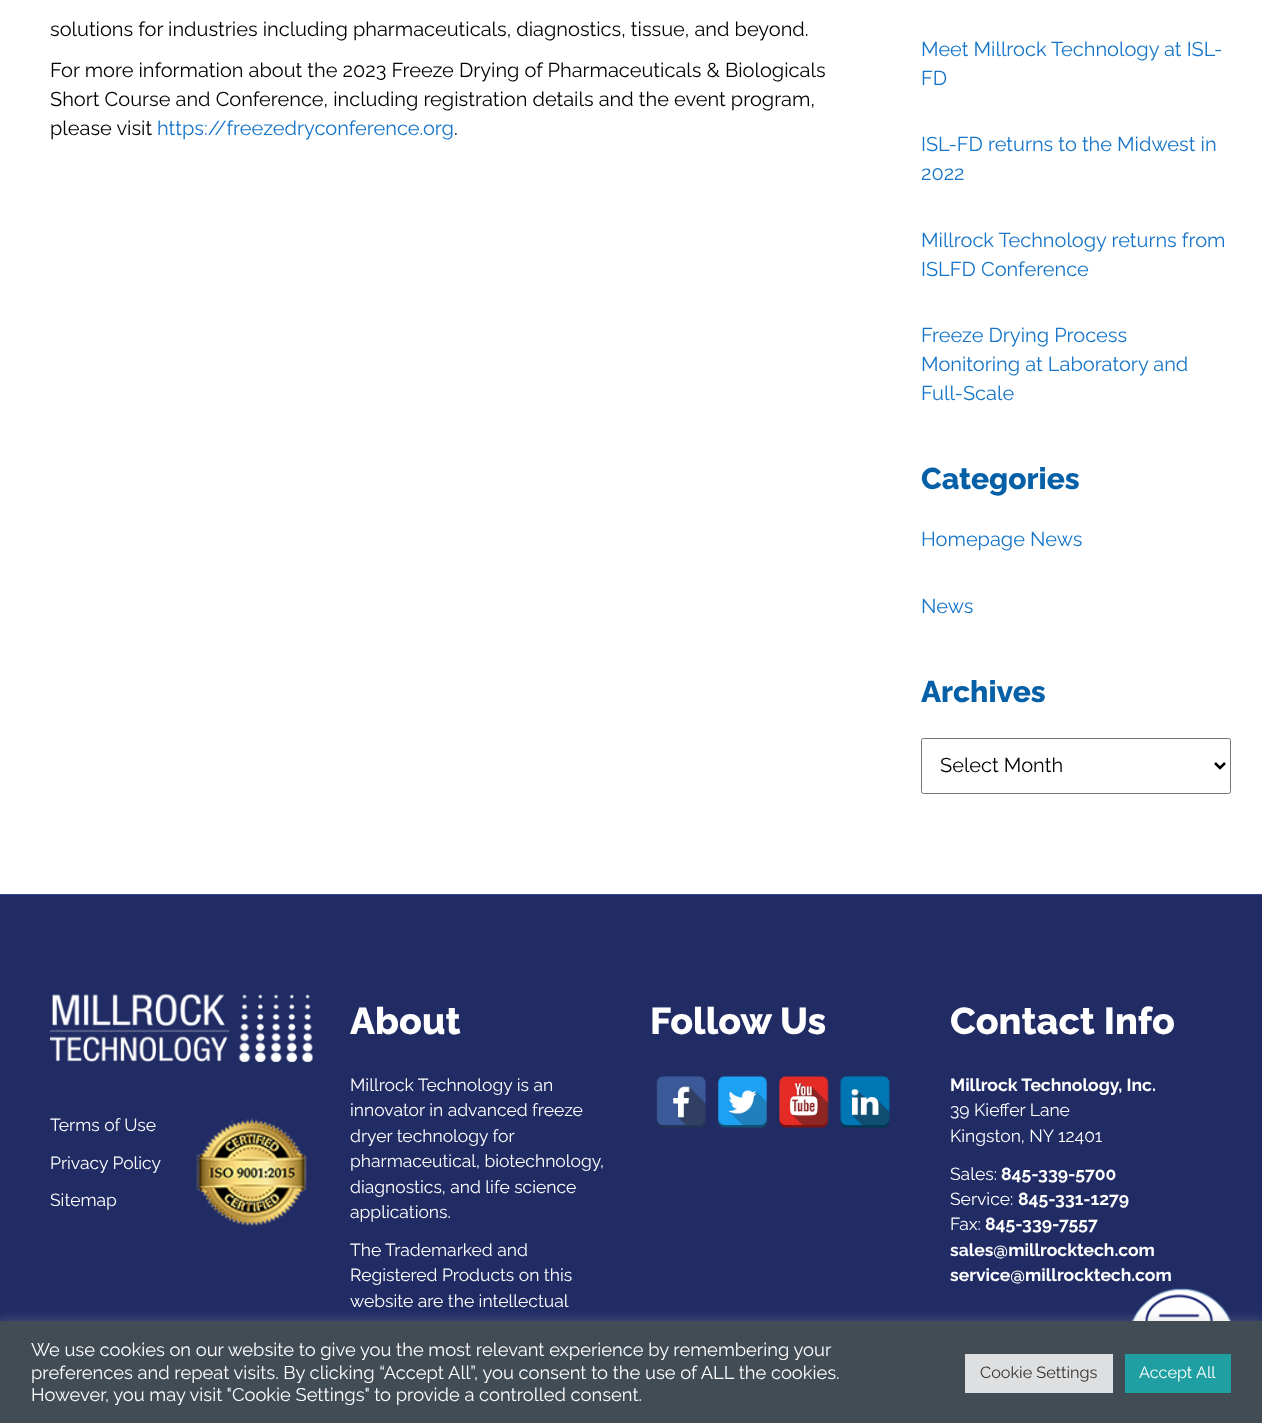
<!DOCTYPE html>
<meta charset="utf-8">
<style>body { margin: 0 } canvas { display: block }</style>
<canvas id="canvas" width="1262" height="1423"></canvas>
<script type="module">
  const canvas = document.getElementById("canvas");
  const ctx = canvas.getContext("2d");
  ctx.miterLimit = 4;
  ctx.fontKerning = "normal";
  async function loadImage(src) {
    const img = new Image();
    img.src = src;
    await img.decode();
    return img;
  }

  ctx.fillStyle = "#ffffff";
  ctx.fillRect(0, 0, 1262, 1423);
  ctx.font = "20px Raleway";
  ctx.fillStyle = "#000000";
  ctx.fillText("solutions for industries including pharmaceuticals, diagnostics, tissue, and beyond.", 50, 36);
  ctx.fillText("For more information about the 2023 Freeze Drying of Pharmaceuticals & Biologicals", 50, 77);
  ctx.fillText("Short Course and Conference, including registration details and the event program,", 50, 106);
  ctx.fillText("please visit", 50, 135);
  ctx.fillStyle = "#1675c9";
  ctx.fillText("https://freezedryconference.org", 157, 135);
  ctx.fillStyle = "#000000";
  ctx.fillText(".", 454, 135);
  ctx.fillStyle = "#1675c9";
  ctx.fillText("Meet Millrock Technology at ISL-", 921, 56);
  ctx.fillText("FD", 921, 85);
  ctx.fillText("ISL-FD returns to the Midwest in", 921, 151);
  ctx.fillText("2022", 921, 180);
  ctx.fillText("Millrock Technology returns from", 921, 247);
  ctx.fillText("ISLFD Conference", 921, 276);
  ctx.fillText("Freeze Drying Process", 921, 342);
  ctx.fillText("Monitoring at Laboratory and", 921, 371);
  ctx.fillText("Full-Scale", 921, 400);
  ctx.font = "800 30px Raleway";
  ctx.fillStyle = "#0560a7";
  ctx.fillText("Categories", 921, 489);
  ctx.font = "20px Raleway";
  ctx.fillStyle = "#1675c9";
  ctx.fillText("Homepage News", 921, 546);
  ctx.fillText("News", 921, 613);
  ctx.font = "800 30px Raleway";
  ctx.fillStyle = "#0560a7";
  ctx.fillText("Archives", 921, 702);
  ctx.beginPath();
  ctx.roundRect(921.5, 738.5, 309, 55, 2);
  ctx.strokeStyle = "#767676";
  ctx.stroke();
  ctx.beginPath();
  ctx.moveTo(1215, 763);
  ctx.lineTo(1220, 768);
  ctx.lineTo(1225, 763);
  ctx.strokeStyle = "#000000";
  ctx.lineWidth = 2.5;
  ctx.stroke();
  ctx.font = "20px Raleway";
  ctx.fillStyle = "#000000";
  ctx.fillText("Select Month", 940, 772);
  ctx.fillStyle = "#212c65";
  ctx.fillRect(0, 895, 1262, 426);
  ctx.fillStyle = "#314297";
  ctx.fillRect(0, 894, 1262, 1);
  ctx.drawImage(await loadImage("img1.png"), 50, 994, 263, 68);
  ctx.font = "17.5px Raleway";
  ctx.fillStyle = "#ffffff";
  ctx.fillText("Terms of Use", 50, 1131);
  ctx.fillText("Privacy Policy", 50, 1169);
  ctx.fillText("Sitemap", 50, 1206);
  ctx.drawImage(await loadImage("img2.png"), 196, 1118, 111, 108);
  ctx.font = "800 37.5px Raleway";
  ctx.fillText("About", 350, 1034);
  ctx.font = "17.5px Raleway";
  ctx.fillText("Millrock Technology is an", 350, 1091);
  ctx.fillText("innovator in advanced freeze", 350, 1116);
  ctx.fillText("dryer technology for", 350, 1142);
  ctx.fillText("pharmaceutical, biotechnology,", 350, 1167);
  ctx.fillText("diagnostics, and life science", 350, 1193);
  ctx.fillText("applications.", 350, 1218);
  ctx.fillText("The Trademarked and", 350, 1256);
  ctx.fillText("Registered Products on this", 350, 1281);
  ctx.fillText("website are the intellectual", 350, 1307);
  ctx.font = "800 37.5px Raleway";
  ctx.fillText("Follow Us", 650, 1034);
  ctx.drawImage(await loadImage("img3.png"), 656, 1076, 50, 52);
  ctx.drawImage(await loadImage("img4.png"), 718, 1075, 50, 53);
  ctx.drawImage(await loadImage("img5.png"), 779, 1075, 50, 53);
  ctx.drawImage(await loadImage("img6.png"), 840, 1075, 50, 53);
  ctx.fillText("Contact Info", 950, 1034);
  ctx.font = "bold 17.5px Raleway";
  ctx.fillText("Millrock Technology, Inc.", 950, 1091);
  ctx.font = "17.5px Raleway";
  ctx.fillText("39 Kieffer Lane", 950, 1116);
  ctx.fillText("Kingston, NY 12401", 950, 1142);
  ctx.fillText("Sales:", 950, 1180);
  ctx.font = "bold 17.5px Raleway";
  ctx.fillText("845-339-5700", 1001, 1180);
  ctx.font = "17.5px Raleway";
  ctx.fillText("Service:", 950, 1205);
  ctx.font = "bold 17.5px Raleway";
  ctx.fillText("845-331-1279", 1018, 1205);
  ctx.font = "17.5px Raleway";
  ctx.fillText("Fax:", 950, 1230);
  ctx.font = "bold 17.5px Raleway";
  ctx.fillText("845-339-7557", 985, 1230);
  ctx.fillText("sales@millrocktech.com", 950, 1256);
  ctx.fillText("service@millrocktech.com", 950, 1281);
  ctx.drawImage(await loadImage("img7.png"), 1131, 1288, 100, 33);
  ctx.fillStyle = "rgba(172, 171, 171, 0.3)";
  ctx.filter = "blur(6px)";
  ctx.beginPath();
  ctx.rect(0, 1320, 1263, 103);
  ctx.fill();
  ctx.filter = "none";
  ctx.fillStyle = "#424c55";
  ctx.fillRect(0, 1321, 1262, 102);
  ctx.font = "18.35px Raleway";
  ctx.fillStyle = "#ffffff";
  ctx.fillText("We use cookies on our website to give you the most relevant experience by remembering your", 31, 1356);
  ctx.fillText("preferences and repeat visits. By clicking “Accept All”, you consent to the use of ALL the cookies.", 31, 1379);
  ctx.fillText("However, you may visit \"Cookie Settings\" to provide a controlled consent.", 31, 1401);
  ctx.fillStyle = "#dedfe0";
  ctx.fillRect(965, 1354, 148, 39);
  ctx.font = "16.25px Raleway";
  ctx.fillStyle = "#333333";
  ctx.fillText("Cookie Settings", 980, 1378);
  ctx.fillStyle = "#1f9fa2";
  ctx.fillRect(1125, 1354, 106, 39);
  ctx.fillStyle = "#ffffff";
  ctx.fillText("Accept All", 1139, 1378);
</script>
